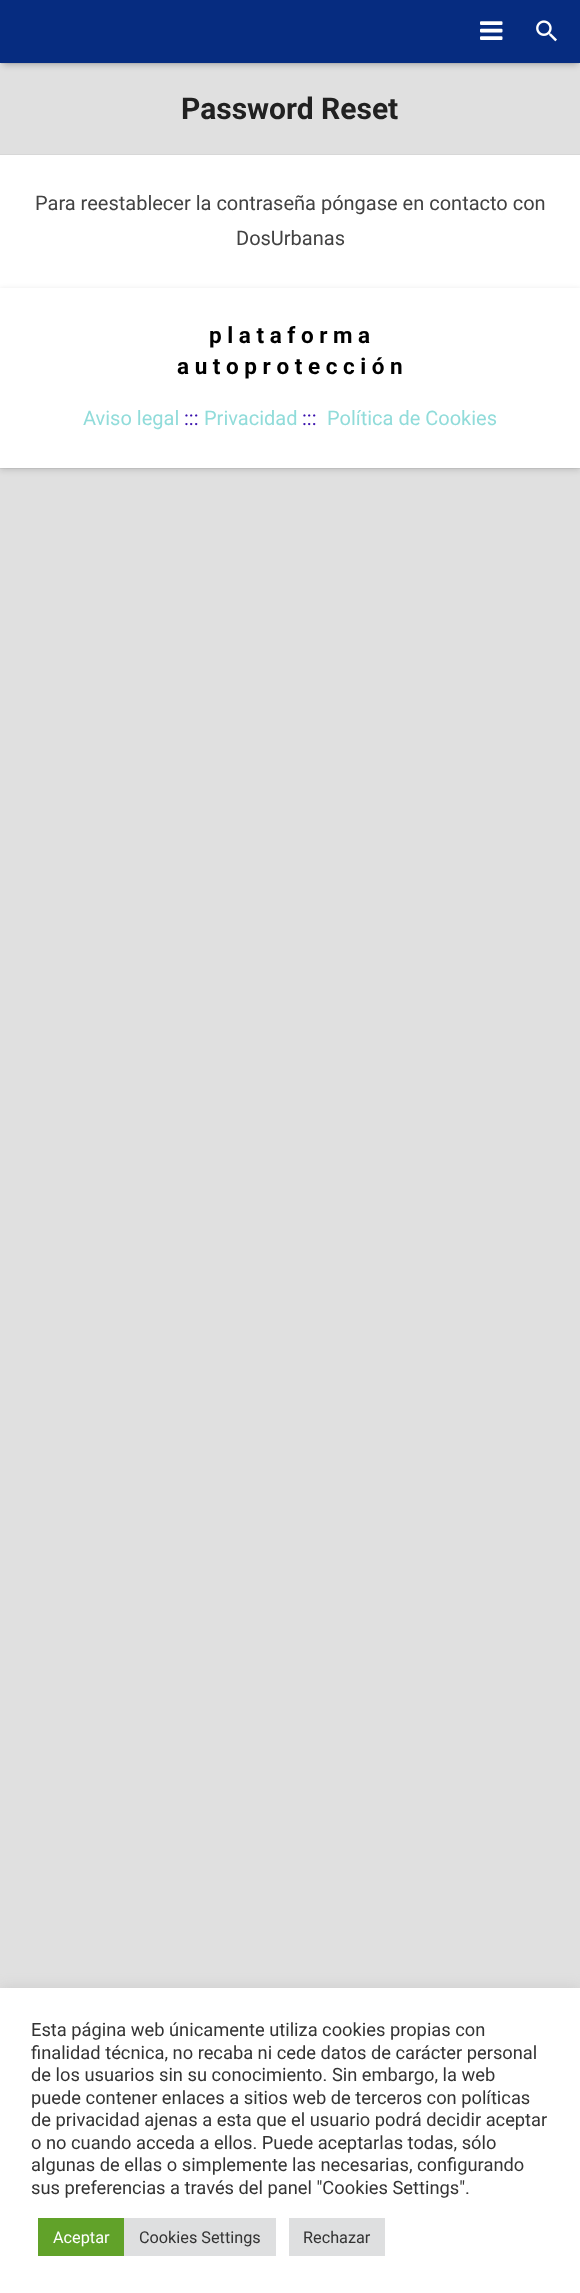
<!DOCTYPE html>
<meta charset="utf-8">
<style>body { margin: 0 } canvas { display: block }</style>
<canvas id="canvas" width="580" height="2293"></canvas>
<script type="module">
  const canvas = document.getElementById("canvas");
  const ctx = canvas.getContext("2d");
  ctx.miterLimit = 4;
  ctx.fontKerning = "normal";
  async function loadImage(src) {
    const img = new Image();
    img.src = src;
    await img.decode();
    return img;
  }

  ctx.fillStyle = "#e0e0e0";
  ctx.fillRect(0, 0, 580, 2293);
  ctx.fillStyle = "#ffffff";
  ctx.fillRect(0, 155, 580, 133);
  ctx.fillStyle = "rgba(0, 0, 0, 0.05)";
  ctx.filter = "blur(0.5px)";
  ctx.beginPath();
  ctx.rect(1, 4, 578, 60);
  ctx.fill();
  ctx.filter = "none";
  ctx.fillStyle = "rgba(0, 0, 0, 0.22)";
  ctx.filter = "blur(3px)";
  ctx.beginPath();
  ctx.rect(3, 8, 575, 57);
  ctx.fill();
  ctx.filter = "none";
  ctx.fillStyle = "#062c80";
  ctx.fillRect(0, 0, 580, 63);
  ctx.drawImage(await loadImage("img1.png"), 480, 21, 23, 19);
  ctx.drawImage(await loadImage("img2.png"), 536, 20, 21, 22);
  ctx.save();
  ctx.beginPath();
  ctx.rect(0, 0, 580, 155);
  ctx.clip();
  ctx.fillStyle = "#d7d7d7";
  ctx.beginPath();
  ctx.moveTo(-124, -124);
  ctx.lineTo(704, -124);
  ctx.lineTo(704, 279);
  ctx.lineTo(-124, 279);
  ctx.closePath();
  ctx.moveTo(0, -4);
  ctx.lineTo(580, -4);
  ctx.bezierCurveTo(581, -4, 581, -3, 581, -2);
  ctx.lineTo(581, 152);
  ctx.bezierCurveTo(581, 153, 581, 154, 580, 154);
  ctx.lineTo(0, 154);
  ctx.bezierCurveTo(-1, 154, -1, 153, -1, 152);
  ctx.lineTo(-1, -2);
  ctx.bezierCurveTo(-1, -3, -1, -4, 0, -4);
  ctx.closePath();
  ctx.fill("evenodd");
  ctx.restore();
  ctx.font = "bold 30px Roboto";
  ctx.fillStyle = "#212121";
  ctx.fillText("Password Reset", 181, 119);
  ctx.font = "20px Roboto";
  ctx.fillStyle = "#424242";
  ctx.fillText("Para reestablecer la contraseña póngase en contacto con", 35, 210);
  ctx.fillText("DosUrbanas", 236, 245);
  ctx.fillStyle = "rgba(0, 0, 0, 0.15)";
  ctx.filter = "blur(3px)";
  ctx.beginPath();
  ctx.rect(0, 290, 580, 180);
  ctx.fill();
  ctx.filter = "none";
  ctx.fillStyle = "rgba(0, 0, 0, 0.05)";
  ctx.filter = "blur(0.5px)";
  ctx.beginPath();
  ctx.rect(0, 289, 580, 180);
  ctx.fill();
  ctx.filter = "none";
  ctx.fillStyle = "#ffffff";
  ctx.fillRect(0, 288, 580, 180);
  ctx.font = "bold 22.5px Roboto";
  ctx.fillStyle = "#000000";
  ctx.fillText("p l a t a f o r m a", 209, 343);
  ctx.fillText("a u t o p r o t e c c i ó n", 177, 374);
  ctx.font = "20px Roboto";
  ctx.fillStyle = "#91dcda";
  ctx.fillText("Aviso legal", 83, 425);
  ctx.fillStyle = "#360cab";
  ctx.fillText(":::", 184, 425);
  ctx.fillStyle = "#91dcda";
  ctx.fillText("Privacidad", 204, 425);
  ctx.fillStyle = "#360cab";
  ctx.fillText(":::", 302, 425);
  ctx.fillStyle = "#91dcda";
  ctx.fillText("Política de Cookies", 327, 425);
  ctx.fillStyle = "rgba(172, 171, 171, 0.3)";
  ctx.filter = "blur(6px)";
  ctx.beginPath();
  ctx.rect(0, 1986, 580, 307);
  ctx.fill();
  ctx.filter = "none";
  ctx.fillStyle = "#ffffff";
  ctx.fillRect(0, 1988, 580, 305);
  ctx.font = "18.3px Roboto";
  ctx.fillStyle = "#333333";
  ctx.fillText("Esta página web únicamente utiliza cookies propias con", 31, 2036);
  ctx.fillText("finalidad técnica, no recaba ni cede datos de carácter personal", 31, 2059);
  ctx.fillText("de los usuarios sin su conocimiento. Sin embargo, la web", 31, 2081);
  ctx.fillText("puede contener enlaces a sitios web de terceros con políticas", 31, 2104);
  ctx.fillText("de privacidad ajenas a esta que el usuario podrá decidir aceptar", 31, 2126);
  ctx.fillText("o no cuando acceda a ellos. Puede aceptarlas todas, sólo", 31, 2149);
  ctx.fillText("algunas de ellas o simplemente las necesarias, configurando", 31, 2171);
  ctx.fillText("sus preferencias a través del panel \"Cookies Settings\".", 31, 2194);
  ctx.fillStyle = "#61a229";
  ctx.fillRect(38, 2218, 86, 38);
  ctx.font = "16.25px Roboto";
  ctx.fillStyle = "#ffffff";
  ctx.fillText("Aceptar", 53, 2243);
  ctx.fillStyle = "#dedfe0";
  ctx.fillRect(124, 2218, 152, 38);
  ctx.fillStyle = "#333333";
  ctx.fillText("Cookies Settings", 139, 2243);
  ctx.fillStyle = "#dedfe0";
  ctx.fillRect(289, 2218, 96, 38);
  ctx.fillStyle = "#333333";
  ctx.fillText("Rechazar", 303, 2243);
</script>
